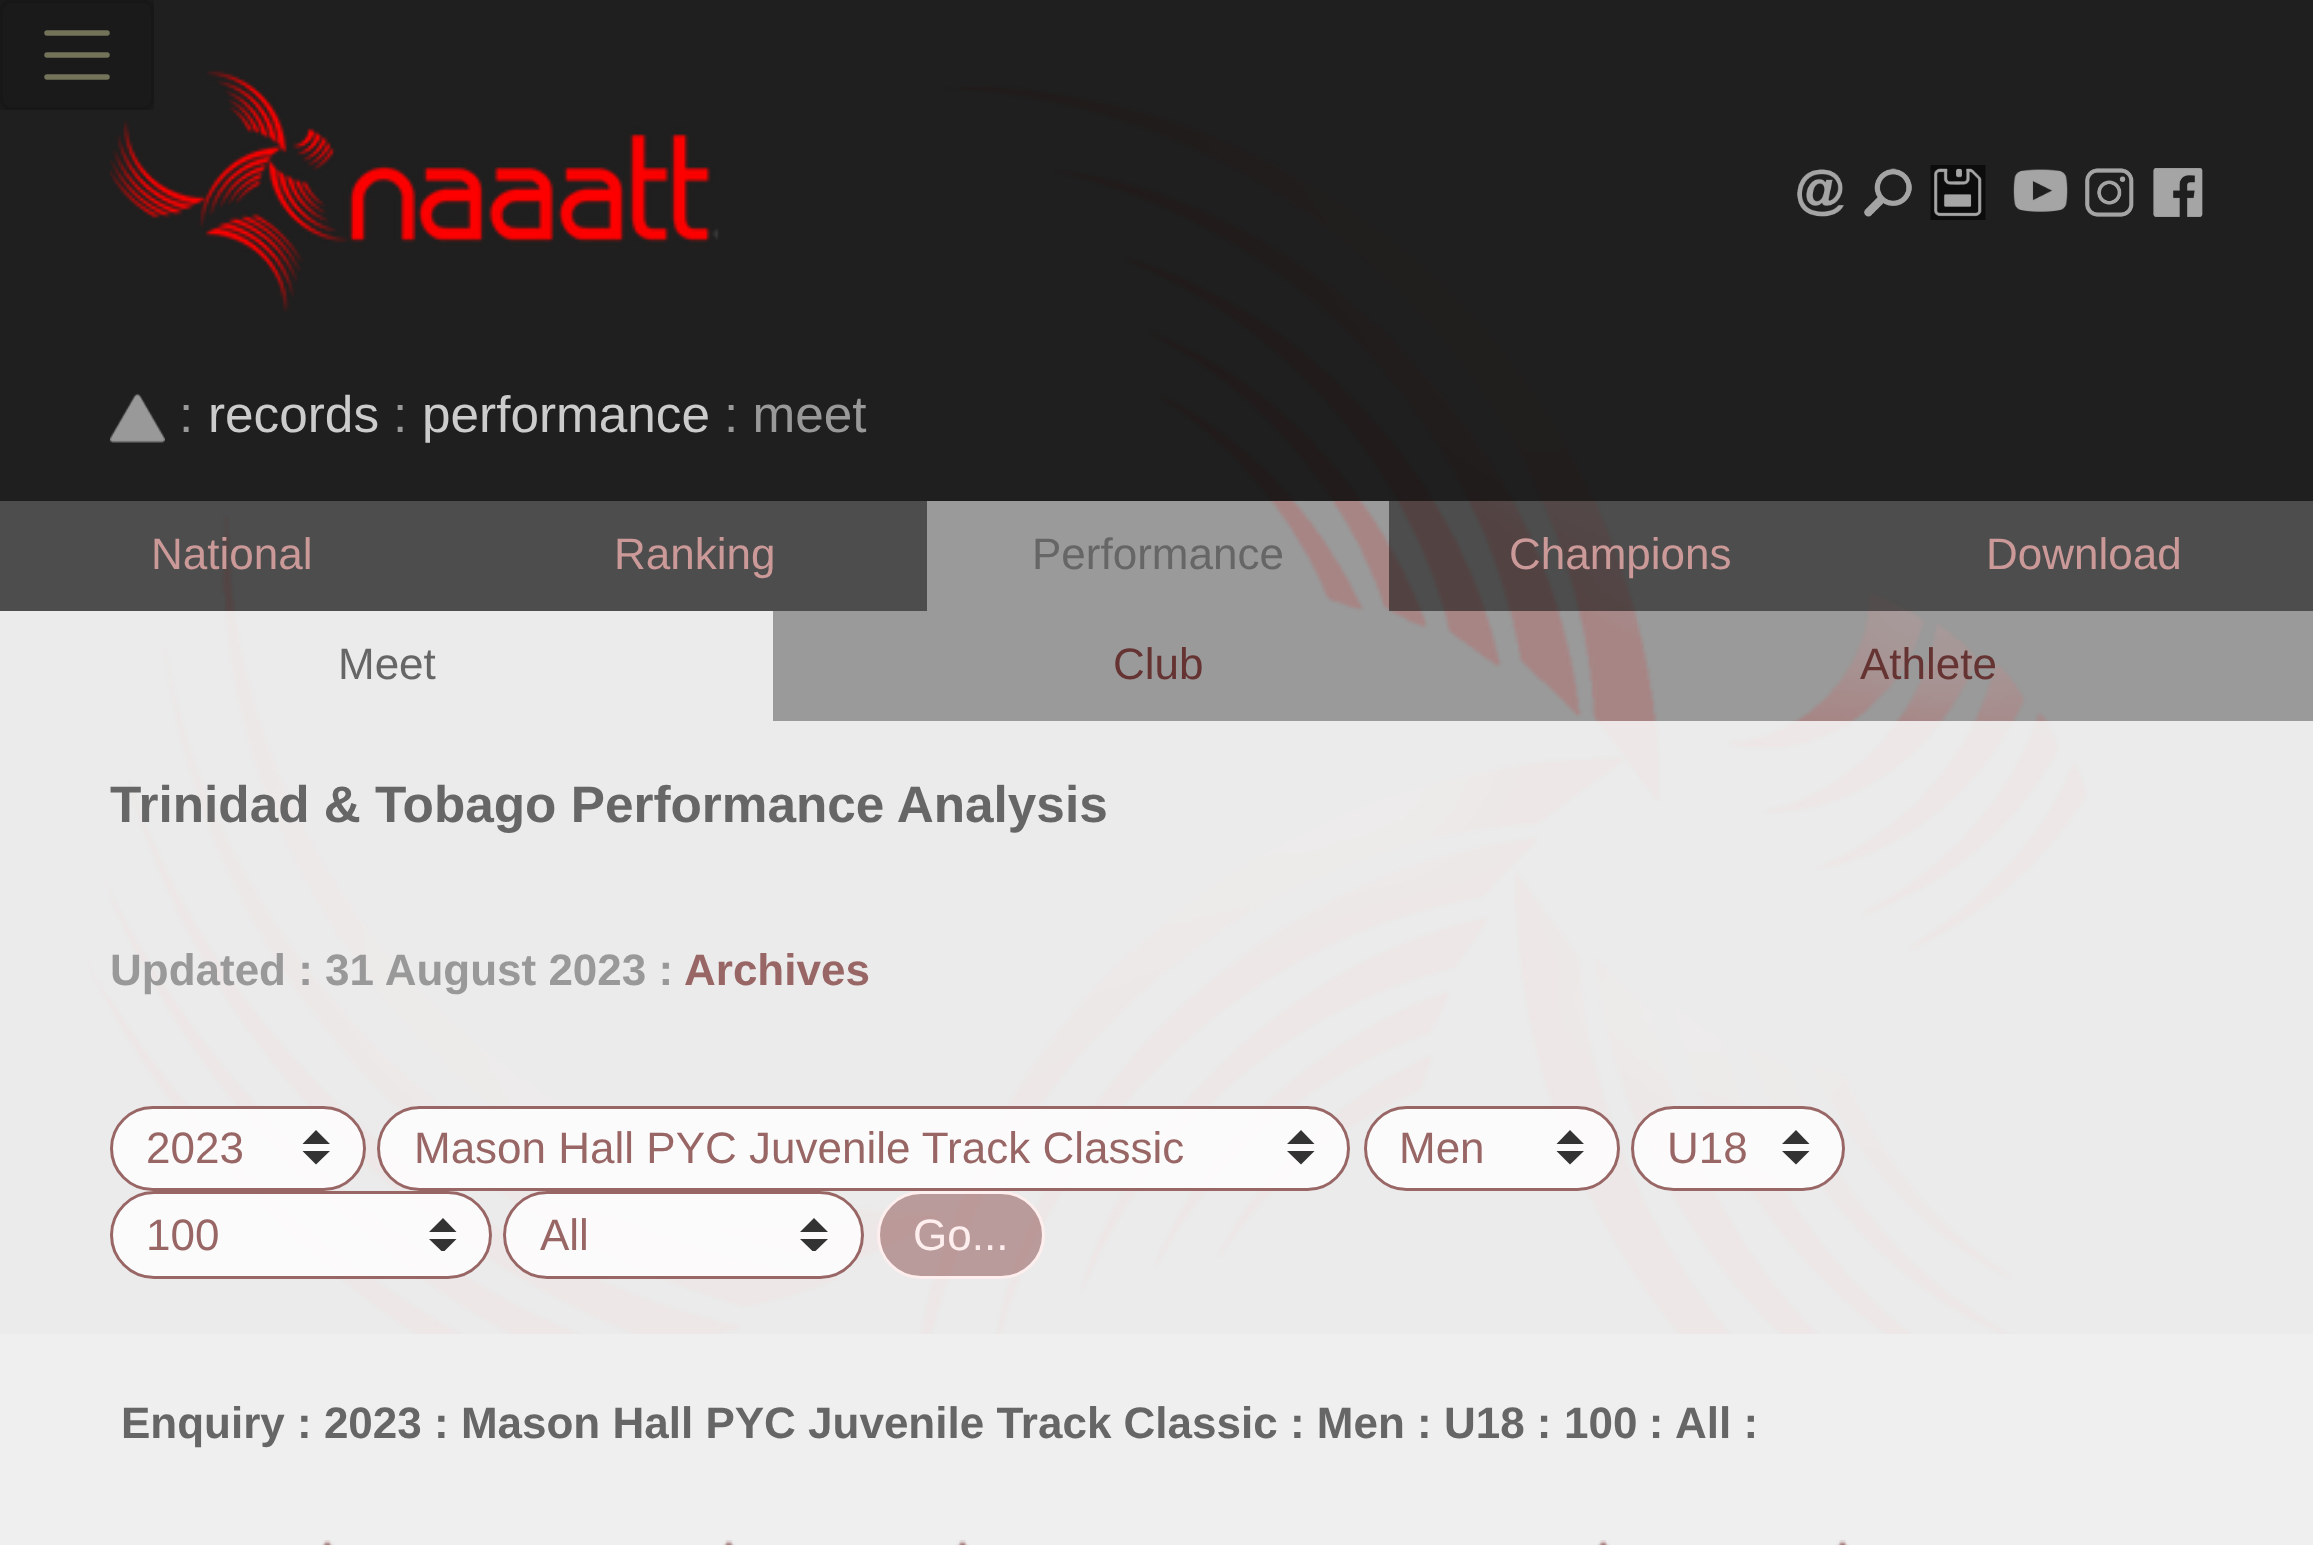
<!DOCTYPE html>
<meta charset="utf-8">
<style>body { margin: 0 } canvas { display: block }</style>
<canvas id="canvas" width="2313" height="1545"></canvas>
<script type="module">
  const canvas = document.getElementById("canvas");
  const ctx = canvas.getContext("2d");
  ctx.miterLimit = 4;
  ctx.fontKerning = "normal";
  async function loadImage(src) {
    const img = new Image();
    img.src = src;
    await img.decode();
    return img;
  }

  ctx.fillStyle = "#9a9a9a";
  ctx.fillRect(0, 0, 2313, 1545);
  ctx.drawImage(await loadImage("img1.png"), 86, 86, 2002, 1248);
  ctx.fillStyle = "rgba(0, 0, 0, 0.8)";
  ctx.fillRect(0, 0, 2313, 501);
  ctx.drawImage(await loadImage("img2.png"), 110, 70, 609, 242);
  ctx.fillStyle = "#1a1a1a";
  ctx.fillRect(0, 0, 154, 110);
  ctx.beginPath();
  ctx.roundRect(1.5, 1.5, 151, 107, 9.5);
  ctx.strokeStyle = "#171717";
  ctx.lineWidth = 3;
  ctx.stroke();
  ctx.beginPath();
  ctx.moveTo(47, 33);
  ctx.lineTo(107, 33);
  ctx.moveTo(47, 55);
  ctx.lineTo(107, 55);
  ctx.moveTo(47, 77);
  ctx.lineTo(107, 77);
  ctx.strokeStyle = "#73735a";
  ctx.lineWidth = 5.5;
  ctx.lineCap = "round";
  ctx.stroke();
  ctx.drawImage(await loadImage("img3.png"), 1797, 169, 47, 48);
  ctx.drawImage(await loadImage("img4.png"), 1864, 168, 48, 49);
  ctx.drawImage(await loadImage("img5.png"), 1930, 165, 56, 55);
  ctx.drawImage(await loadImage("img6.png"), 2013, 169, 55, 43);
  ctx.drawImage(await loadImage("img7.png"), 2085, 168, 49, 49);
  ctx.drawImage(await loadImage("img8.png"), 2153, 168, 50, 49);
  ctx.drawImage(await loadImage("img9.png"), 110, 393, 55, 50);
  ctx.font = "51.3px Liberation Sans";
  ctx.fillStyle = "#999999";
  ctx.fillText(":", 179, 432);
  ctx.fillStyle = "#cccccc";
  ctx.fillText("records", 208, 432);
  ctx.fillStyle = "#999999";
  ctx.fillText(":", 393, 432);
  ctx.fillStyle = "#cccccc";
  ctx.fillText("performance", 422, 432);
  ctx.fillStyle = "#999999";
  ctx.fillText(": meet", 724, 432);
  ctx.fillStyle = "rgba(0, 0, 0, 0.5)";
  ctx.fillRect(0, 501, 462, 110);
  ctx.font = "44px Liberation Sans";
  ctx.fillStyle = "#cc9999";
  ctx.fillText("National", 151, 569);
  ctx.fillStyle = "#4d4d4d";
  ctx.fillRect(462, 501, 465, 110);
  ctx.fillStyle = "#cc9999";
  ctx.fillText("Ranking", 614, 569);
  ctx.fillStyle = "#666666";
  ctx.fillText("Performance", 1032, 569);
  ctx.fillStyle = "rgba(0, 0, 0, 0.5)";
  ctx.fillRect(1389, 501, 465, 110);
  ctx.fillStyle = "#cc9999";
  ctx.fillText("Champions", 1509, 569);
  ctx.fillStyle = "rgba(0, 0, 0, 0.5)";
  ctx.fillRect(1854, 501, 459, 110);
  ctx.fillStyle = "#cc9999";
  ctx.fillText("Download", 1986, 569);
  ctx.fillStyle = "rgba(255, 255, 255, 0.8)";
  ctx.fillRect(0, 611, 773, 110);
  ctx.fillStyle = "#666666";
  ctx.fillText("Meet", 338, 679);
  ctx.fillStyle = "#663333";
  ctx.fillText("Club", 1113, 679);
  ctx.fillText("Athlete", 1860, 679);
  ctx.fillStyle = "rgba(255, 255, 255, 0.8)";
  ctx.fillRect(0, 721, 2313, 613);
  ctx.font = "bold 51.3px Liberation Sans";
  ctx.fillStyle = "#666666";
  ctx.fillText("Trinidad & Tobago Performance Analysis", 110, 822);
  ctx.font = "bold 44px Liberation Sans";
  ctx.fillStyle = "#999999";
  ctx.fillText("Updated : 31 August 2023 :", 110, 985);
  ctx.fillStyle = "#996666";
  ctx.fillText("Archives", 684, 985);
  ctx.fillStyle = "rgba(255, 255, 255, 0.8)";
  ctx.beginPath();
  ctx.roundRect(110, 1106, 256, 85, 42.5);
  ctx.fill();
  ctx.fillStyle = "#333333";
  ctx.beginPath();
  ctx.moveTo(316, 1130);
  ctx.lineTo(302.5, 1144);
  ctx.lineTo(330, 1144);
  ctx.closePath();
  ctx.moveTo(316, 1164.5);
  ctx.lineTo(302.5, 1151);
  ctx.lineTo(330, 1151);
  ctx.closePath();
  ctx.fill();
  ctx.beginPath();
  ctx.roundRect(111.5, 1107.5, 253, 82, 41);
  ctx.strokeStyle = "#996666";
  ctx.lineWidth = 3;
  ctx.stroke();
  ctx.font = "44px Liberation Sans";
  ctx.fillStyle = "#996666";
  ctx.fillText("2023", 146, 1163);
  ctx.fillStyle = "rgba(255, 255, 255, 0.8)";
  ctx.beginPath();
  ctx.roundRect(377, 1106, 973, 85, 42.5);
  ctx.fill();
  ctx.fillStyle = "#333333";
  ctx.beginPath();
  ctx.moveTo(1301, 1130);
  ctx.lineTo(1287, 1144);
  ctx.lineTo(1314.5, 1144);
  ctx.closePath();
  ctx.moveTo(1301, 1164.5);
  ctx.lineTo(1287, 1151);
  ctx.lineTo(1314.5, 1151);
  ctx.closePath();
  ctx.fill();
  ctx.beginPath();
  ctx.roundRect(378.5, 1107.5, 970, 82, 41);
  ctx.stroke();
  ctx.fillStyle = "#996666";
  ctx.fillText("Mason Hall PYC Juvenile Track Classic", 414, 1163);
  ctx.fillStyle = "rgba(255, 255, 255, 0.8)";
  ctx.beginPath();
  ctx.roundRect(1364, 1106, 256, 85, 42.5);
  ctx.fill();
  ctx.fillStyle = "#333333";
  ctx.beginPath();
  ctx.moveTo(1570, 1130);
  ctx.lineTo(1556.5, 1144);
  ctx.lineTo(1584, 1144);
  ctx.closePath();
  ctx.moveTo(1570, 1164.5);
  ctx.lineTo(1556.5, 1151);
  ctx.lineTo(1584, 1151);
  ctx.closePath();
  ctx.fill();
  ctx.beginPath();
  ctx.roundRect(1365.5, 1107.5, 253, 82, 41);
  ctx.stroke();
  ctx.fillStyle = "#996666";
  ctx.fillText("Men", 1399, 1163);
  ctx.fillStyle = "rgba(255, 255, 255, 0.8)";
  ctx.beginPath();
  ctx.roundRect(1631, 1106, 214, 85, 42.5);
  ctx.fill();
  ctx.fillStyle = "#333333";
  ctx.beginPath();
  ctx.moveTo(1796, 1130);
  ctx.lineTo(1782, 1144);
  ctx.lineTo(1809.5, 1144);
  ctx.closePath();
  ctx.moveTo(1796, 1164.5);
  ctx.lineTo(1782, 1151);
  ctx.lineTo(1809.5, 1151);
  ctx.closePath();
  ctx.fill();
  ctx.beginPath();
  ctx.roundRect(1632.5, 1107.5, 211, 82, 41);
  ctx.stroke();
  ctx.fillStyle = "#996666";
  ctx.fillText("U18", 1667, 1163);
  ctx.fillStyle = "rgba(255, 255, 255, 0.8)";
  ctx.beginPath();
  ctx.roundRect(110, 1191, 382, 88, 44);
  ctx.fill();
  ctx.save();
  ctx.beginPath();
  ctx.rect(429, 1218, 28, 33);
  ctx.clip();
  ctx.fillStyle = "#333333";
  ctx.beginPath();
  ctx.moveTo(443, 1218);
  ctx.lineTo(429, 1232);
  ctx.lineTo(456.5, 1232);
  ctx.closePath();
  ctx.moveTo(443, 1252.5);
  ctx.lineTo(429, 1239);
  ctx.lineTo(456.5, 1239);
  ctx.closePath();
  ctx.fill();
  ctx.restore();
  ctx.beginPath();
  ctx.roundRect(111.5, 1192.5, 379, 85, 42.5);
  ctx.stroke();
  ctx.fillStyle = "#996666";
  ctx.fillText("100", 146, 1250);
  ctx.fillStyle = "rgba(255, 255, 255, 0.8)";
  ctx.beginPath();
  ctx.roundRect(503, 1191, 361, 88, 44);
  ctx.fill();
  ctx.save();
  ctx.beginPath();
  ctx.rect(800, 1218, 28, 33);
  ctx.clip();
  ctx.fillStyle = "#333333";
  ctx.beginPath();
  ctx.moveTo(814, 1218);
  ctx.lineTo(800, 1232);
  ctx.lineTo(828, 1232);
  ctx.closePath();
  ctx.moveTo(814, 1252.5);
  ctx.lineTo(800, 1239);
  ctx.lineTo(828, 1239);
  ctx.closePath();
  ctx.fill();
  ctx.restore();
  ctx.beginPath();
  ctx.roundRect(504.5, 1192.5, 358, 85, 42.5);
  ctx.stroke();
  ctx.fillStyle = "#996666";
  ctx.fillText("All", 540, 1250);
  ctx.fillStyle = "rgba(153, 102, 102, 0.6)";
  ctx.beginPath();
  ctx.roundRect(878.5, 1192.5, 165, 85, 42.5);
  ctx.fill();
  ctx.strokeStyle = "#ffeeee";
  ctx.stroke();
  ctx.fillStyle = "#ffeeee";
  ctx.fillText("Go...", 913, 1250);
  ctx.fillStyle = "#efefef";
  ctx.fillRect(0, 1334, 2313, 211);
  ctx.font = "bold 44px Liberation Sans";
  ctx.fillStyle = "#666666";
  ctx.fillText("Enquiry : 2023 : Mason Hall PYC Juvenile Track Classic : Men : U18 :", 121, 1438);
  ctx.wordSpacing = "-1px";
  ctx.fillText("100 :", 1564, 1438);
  ctx.wordSpacing = "0px";
  ctx.fillText("All :", 1675, 1438);
  ctx.drawImage(await loadImage("img10.png"), 321, 1540, 13, 5);
  ctx.drawImage(await loadImage("img11.png"), 723, 1540, 12, 5);
  ctx.drawImage(await loadImage("img12.png"), 956, 1540, 13, 5);
  ctx.drawImage(await loadImage("img10.png"), 1597, 1540, 13, 5);
  ctx.drawImage(await loadImage("img12.png"), 1836, 1540, 13, 5);
</script>
